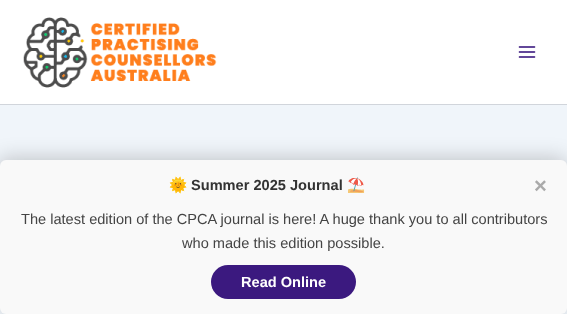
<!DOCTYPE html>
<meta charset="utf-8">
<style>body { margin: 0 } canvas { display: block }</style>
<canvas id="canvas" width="567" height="314"></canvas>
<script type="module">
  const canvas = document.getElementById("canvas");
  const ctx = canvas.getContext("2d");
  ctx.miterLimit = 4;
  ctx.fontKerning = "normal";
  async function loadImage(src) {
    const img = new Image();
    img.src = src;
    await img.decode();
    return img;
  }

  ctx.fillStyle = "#f0f5fa";
  ctx.fillRect(0, 0, 567, 314);
  ctx.fillStyle = "#ffffff";
  ctx.fillRect(0, 0, 567, 104);
  ctx.fillStyle = "#d1d5db";
  ctx.fillRect(0, 104, 567, 1);
  ctx.drawImage(await loadImage("img1.png"), 23, 17, 194, 71);
  ctx.drawImage(await loadImage("img2.png"), 518, 46, 18, 12);
  ctx.fillStyle = "rgba(0, 0, 0, 0.2)";
  ctx.filter = "blur(10px)";
  ctx.beginPath();
  ctx.roundRect(-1, 158, 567, 154, 6);
  ctx.fill();
  ctx.filter = "none";
  ctx.fillStyle = "#f9f9f9";
  ctx.beginPath();
  ctx.roundRect(0, 160, 567, 154, 6);
  ctx.fill();
  ctx.font = "bold 14.6px Noto Color Emoji";
  ctx.fillStyle = "#333333";
  ctx.fillText("🌞", 169, 190);
  ctx.font = "bold 14.6px Liberation Sans";
  ctx.fillText("Summer 2025 Journal", 191, 190);
  ctx.font = "bold 14.6px Noto Color Emoji";
  ctx.fillText("⛱️", 347, 190);
  ctx.font = "bold 22px Liberation Sans";
  ctx.fillStyle = "#aaaaaa";
  ctx.fillText("×", 534, 193);
  ctx.font = "14.6px Liberation Sans";
  ctx.fillStyle = "#444444";
  ctx.fillText("The latest edition of the CPCA journal is here! A huge thank you to all contributors", 21, 224);
  ctx.fillText("who made this edition possible.", 182, 248);
  ctx.fillStyle = "#3b197f";
  ctx.beginPath();
  ctx.roundRect(211, 265, 145, 34, 17);
  ctx.fill();
  ctx.font = "bold 14.6px Liberation Sans";
  ctx.fillStyle = "#ffffff";
  ctx.fillText("Read Online", 241, 287);
</script>
